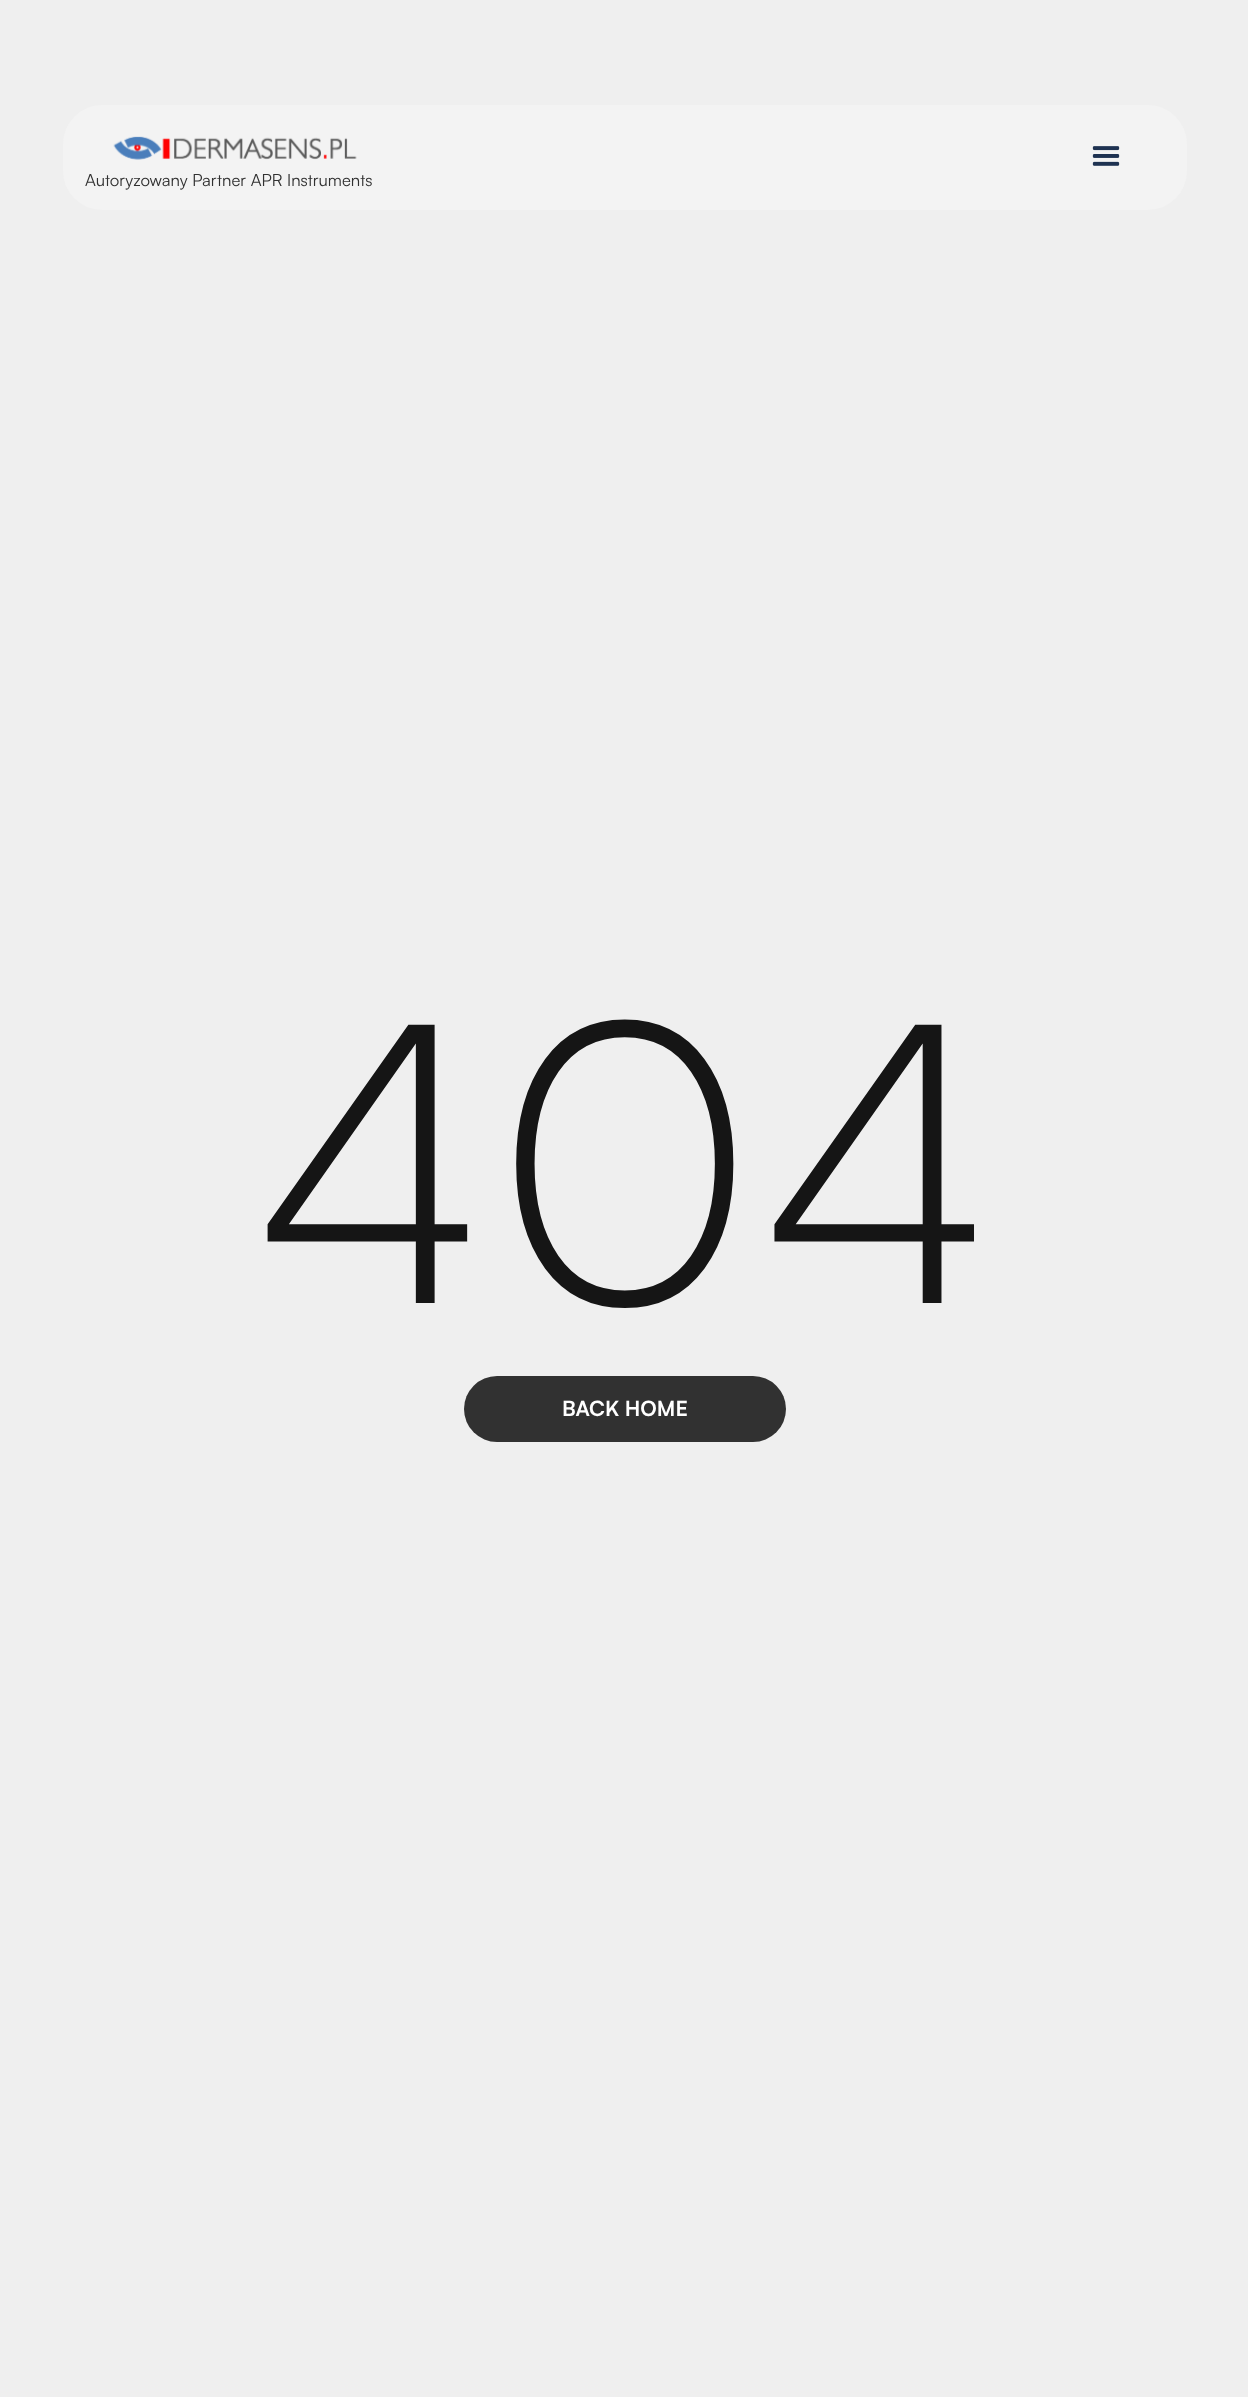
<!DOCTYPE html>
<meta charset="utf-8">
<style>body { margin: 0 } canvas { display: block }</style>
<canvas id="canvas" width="1248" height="2397"></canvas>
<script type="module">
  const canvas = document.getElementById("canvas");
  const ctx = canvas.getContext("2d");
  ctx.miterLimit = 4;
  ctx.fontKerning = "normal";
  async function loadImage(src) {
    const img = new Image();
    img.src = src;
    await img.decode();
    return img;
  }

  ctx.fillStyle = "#efefef";
  ctx.fillRect(0, 0, 1248, 2397);
  ctx.fillStyle = "#f3f3f3";
  ctx.beginPath();
  ctx.roundRect(63, 105, 1124, 105, 39);
  ctx.fill();
  ctx.drawImage(await loadImage("img1.png"), 1092, 146, 28, 20);
  ctx.drawImage(await loadImage("img2.png"), 113, 136, 244, 24);
  ctx.font = "16.75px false";
  ctx.fillStyle = "#313131";
  ctx.fillText("Autoryzowany Partner APR Instruments", 85, 186);
  ctx.font = "300 392px Satoshi";
  ctx.fillStyle = "#151515";
  ctx.fillText("404", 250, 1303);
  ctx.save();
  ctx.beginPath();
  ctx.roundRect(464, 1376, 322, 66, 33);
  ctx.clip();
  ctx.fillStyle = "#313131";
  ctx.beginPath();
  ctx.arc(625, 1409, 224, 0, Math.PI * 2);
  ctx.fill();
  ctx.restore();
  ctx.font = "bold 21px false";
  ctx.fillStyle = "#ffffff";
  ctx.fillText("BACK HOME", 562, 1416);
</script>
